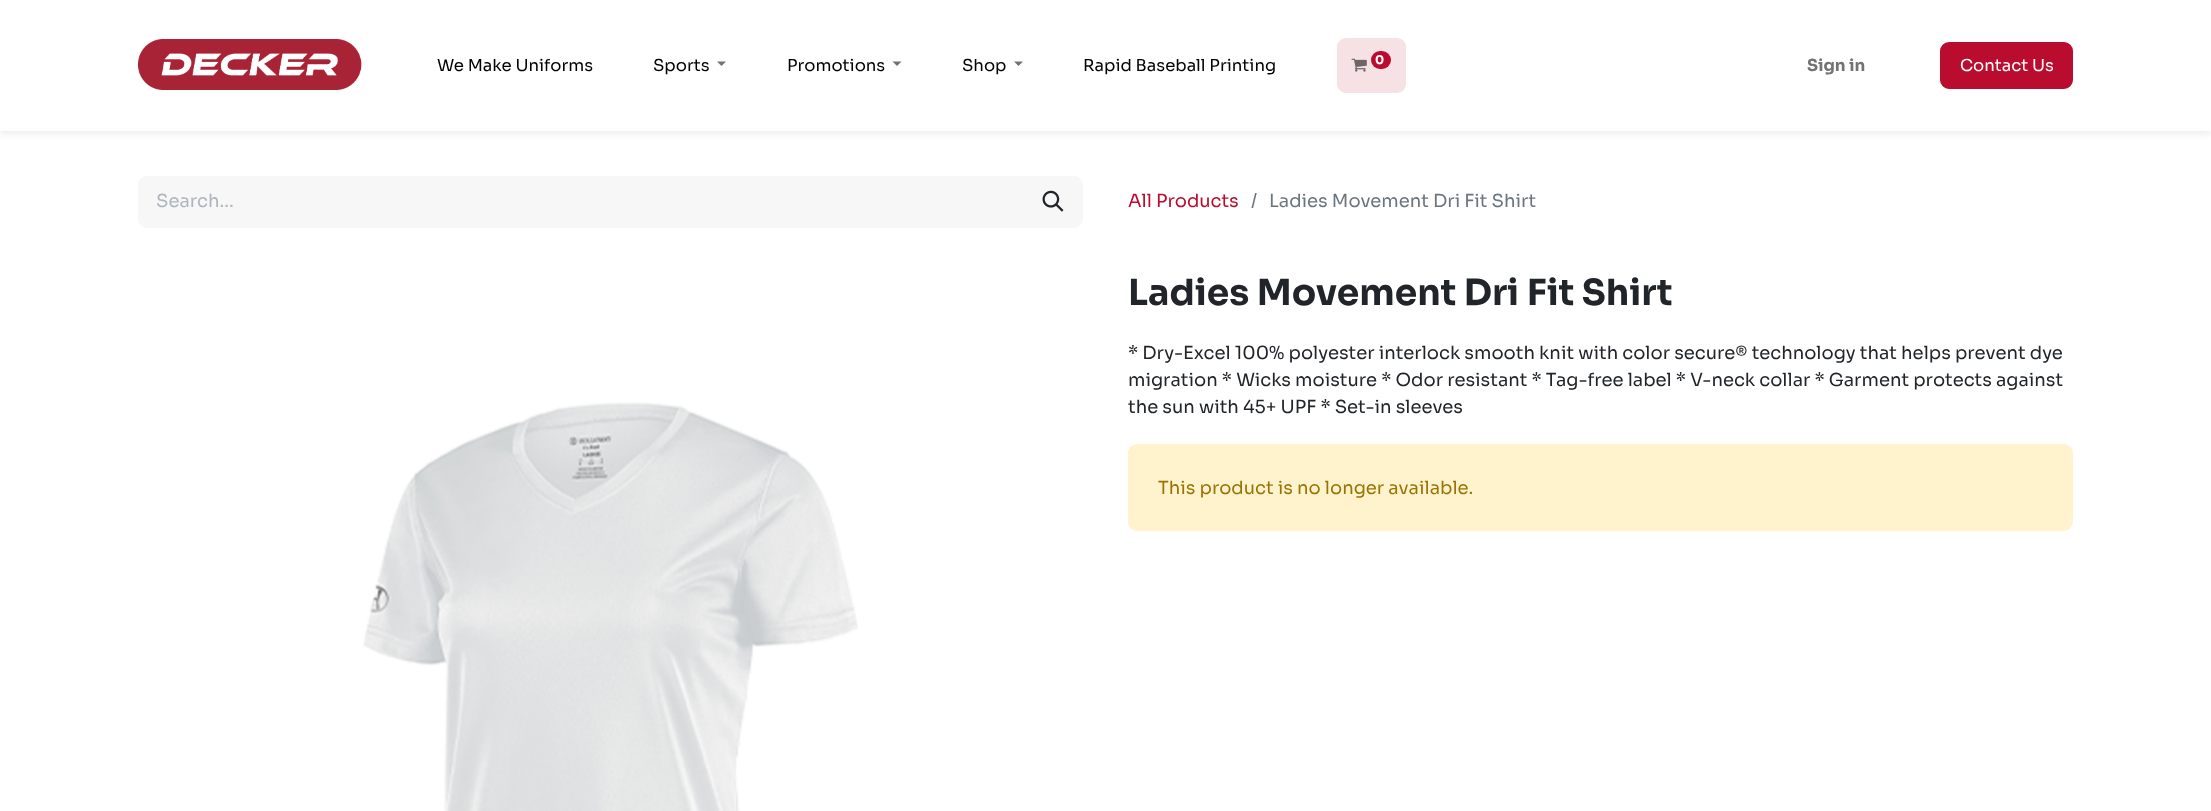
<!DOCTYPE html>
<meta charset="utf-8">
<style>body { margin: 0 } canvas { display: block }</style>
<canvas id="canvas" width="2211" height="811"></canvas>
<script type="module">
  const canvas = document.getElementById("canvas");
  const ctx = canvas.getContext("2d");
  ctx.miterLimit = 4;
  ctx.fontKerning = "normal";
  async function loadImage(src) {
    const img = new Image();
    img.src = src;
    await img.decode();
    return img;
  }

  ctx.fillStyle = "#ffffff";
  ctx.fillRect(0, 0, 2211, 811);
  ctx.fillStyle = "rgba(0, 0, 0, 0.07)";
  ctx.filter = "blur(3px)";
  ctx.beginPath();
  ctx.rect(0, 3, 2211, 131);
  ctx.fill();
  ctx.filter = "none";
  ctx.fillStyle = "#ffffff";
  ctx.fillRect(0, 0, 2211, 131);
  ctx.drawImage(await loadImage("img1.png"), 138, 39, 224, 51);
  ctx.font = "16.5px Sora";
  ctx.fillStyle = "#000000";
  ctx.fillText("We Make Uniforms", 437, 71);
  ctx.fillText("Sports", 653, 71);
  ctx.fillStyle = "#737373";
  ctx.beginPath();
  ctx.moveTo(717, 61.5);
  ctx.lineTo(726, 61.5);
  ctx.lineTo(721.5, 66);
  ctx.closePath();
  ctx.fill();
  ctx.fillStyle = "#000000";
  ctx.fillText("Promotions", 787, 71);
  ctx.fillStyle = "#737373";
  ctx.beginPath();
  ctx.moveTo(892.5, 61.5);
  ctx.lineTo(901.5, 61.5);
  ctx.lineTo(897, 66);
  ctx.closePath();
  ctx.fill();
  ctx.fillStyle = "#000000";
  ctx.fillText("Shop", 962, 71);
  ctx.fillStyle = "#737373";
  ctx.beginPath();
  ctx.moveTo(1014, 61.5);
  ctx.lineTo(1023, 61.5);
  ctx.lineTo(1018.5, 66);
  ctx.closePath();
  ctx.fill();
  ctx.fillStyle = "#000000";
  ctx.fillText("Rapid Baseball Printing", 1083, 71);
  ctx.fillStyle = "#f6e1e5";
  ctx.beginPath();
  ctx.roundRect(1337, 38, 69, 55, 9);
  ctx.fill();
  ctx.drawImage(await loadImage("img2.png"), 1351, 58, 16, 14);
  ctx.fillStyle = "#ba0c2f";
  ctx.beginPath();
  ctx.roundRect(1371, 51, 20, 18, 9);
  ctx.fill();
  ctx.font = "bold 12px Sora";
  ctx.fillStyle = "#ffffff";
  ctx.fillText("0", 1375, 64);
  ctx.font = "bold 16.5px Sora";
  ctx.fillStyle = "#737373";
  ctx.fillText("Sign in", 1807, 71);
  ctx.fillStyle = "#ba0c2f";
  ctx.beginPath();
  ctx.roundRect(1941, 43, 131, 45, 8);
  ctx.fill();
  ctx.strokeStyle = "#ba0c2f";
  ctx.lineWidth = 2;
  ctx.stroke();
  ctx.font = "16.5px Sora";
  ctx.fillStyle = "#ffffff";
  ctx.fillText("Contact Us", 1960, 71);
  ctx.fillStyle = "#f8f7f7";
  ctx.beginPath();
  ctx.roundRect(138, 176, 887, 52, [9, 0, 0, 9]);
  ctx.fill();
  ctx.font = "18px Sora";
  ctx.fillStyle = "#adb5bd";
  ctx.fillText("Search...", 156, 207);
  ctx.fillStyle = "#f8f7f7";
  ctx.beginPath();
  ctx.roundRect(1023, 176, 60, 52, [0, 9, 9, 0]);
  ctx.fill();
  ctx.drawImage(await loadImage("img3.png"), 1042, 190, 22, 22);
  ctx.fillStyle = "#ba0c2f";
  ctx.fillText("All Products", 1128, 207);
  ctx.fillStyle = "#6c757d";
  ctx.fillText("/", 1251, 207);
  ctx.fillText("Ladies Movement Dri Fit Shirt", 1269, 207);
  ctx.drawImage(await loadImage("img4.png"), 363, 402, 495, 409);
  ctx.font = "bold 36px Sora";
  ctx.fillStyle = "#212529";
  ctx.fillText("Ladies Movement Dri Fit Shirt", 1128, 305);
  ctx.font = "18px Sora";
  ctx.fillText("* Dry-Excel 100% polyester interlock smooth knit with color secure® technology that helps prevent dye", 1128, 359);
  ctx.fillText("migration * Wicks moisture * Odor resistant * Tag-free label * V-neck collar * Garment protects against", 1128, 386);
  ctx.fillText("the sun with 45+ UPF * Set-in sleeves", 1128, 413);
  ctx.fillStyle = "#fff3cd";
  ctx.beginPath();
  ctx.roundRect(1128, 444, 945, 87, 9);
  ctx.fill();
  ctx.fillStyle = "#997404";
  ctx.fillText("This product is no longer available.", 1158, 494);
</script>
